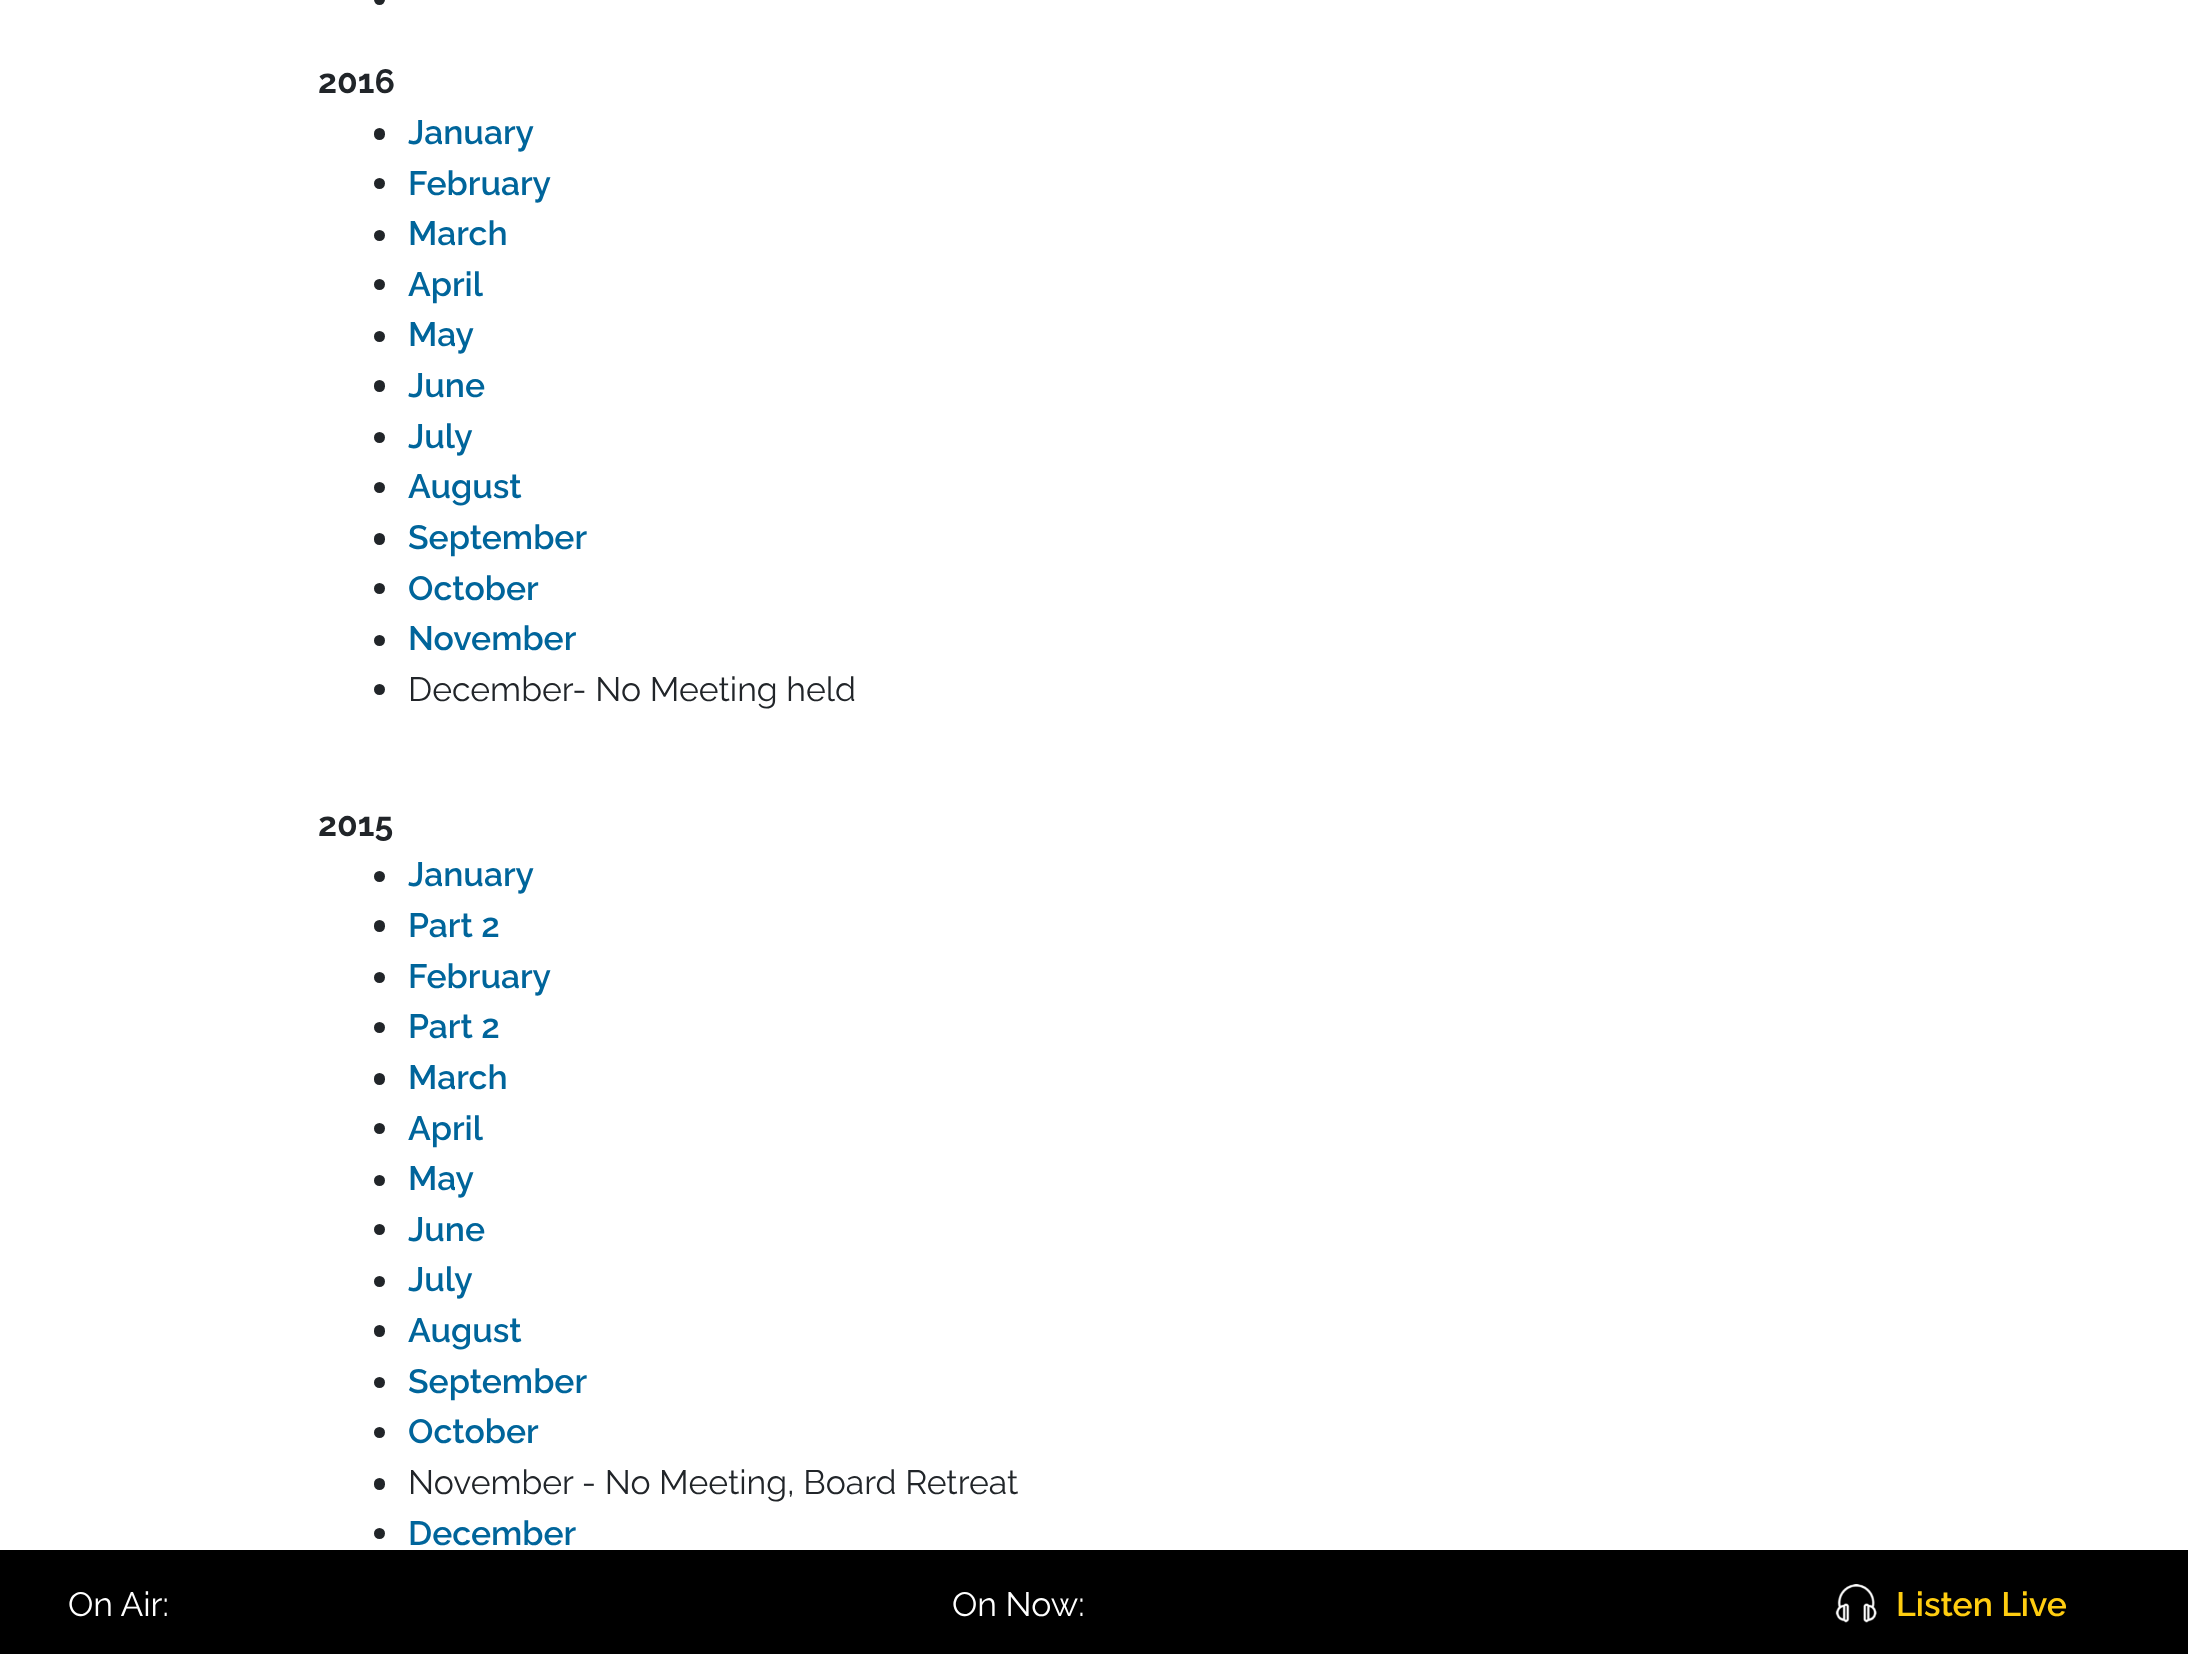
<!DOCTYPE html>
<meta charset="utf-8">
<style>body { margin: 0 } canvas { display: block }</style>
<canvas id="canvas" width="2188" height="1654"></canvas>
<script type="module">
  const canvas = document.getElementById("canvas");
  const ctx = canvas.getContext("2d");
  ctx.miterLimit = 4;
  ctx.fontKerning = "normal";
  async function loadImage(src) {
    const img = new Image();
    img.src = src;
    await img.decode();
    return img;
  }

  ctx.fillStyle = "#ffffff";
  ctx.fillRect(0, 0, 2188, 1654);
  ctx.fillStyle = "#212529";
  ctx.beginPath();
  ctx.arc(379.5, -0.5, 5.5, 0, Math.PI * 2);
  ctx.fill();
  ctx.font = "bold 33.75px Raleway";
  ctx.fillText("2016", 318, 93);
  ctx.beginPath();
  ctx.roundRect(374, 128, 11, 12, 5.5);
  ctx.fill();
  ctx.font = "600 33.75px Raleway";
  ctx.fillStyle = "#00659b";
  ctx.fillText("January", 408, 144);
  ctx.fillStyle = "#212529";
  ctx.beginPath();
  ctx.arc(379.5, 183.5, 5.5, 0, Math.PI * 2);
  ctx.fill();
  ctx.fillStyle = "#00659b";
  ctx.fillText("February", 408, 195);
  ctx.fillStyle = "#212529";
  ctx.beginPath();
  ctx.arc(379.5, 235.5, 5.5, 0, Math.PI * 2);
  ctx.fill();
  ctx.fillStyle = "#00659b";
  ctx.fillText("March", 408, 245);
  ctx.fillStyle = "#212529";
  ctx.beginPath();
  ctx.arc(379.5, 284.5, 5.5, 0, Math.PI * 2);
  ctx.fill();
  ctx.fillStyle = "#00659b";
  ctx.fillText("April", 408, 296);
  ctx.fillStyle = "#212529";
  ctx.beginPath();
  ctx.arc(379.5, 336.5, 5.5, 0, Math.PI * 2);
  ctx.fill();
  ctx.fillStyle = "#00659b";
  ctx.fillText("May", 408, 346);
  ctx.fillStyle = "#212529";
  ctx.beginPath();
  ctx.roundRect(374, 380, 11, 12, 5.5);
  ctx.fill();
  ctx.fillStyle = "#00659b";
  ctx.fillText("June", 408, 397);
  ctx.fillStyle = "#212529";
  ctx.beginPath();
  ctx.arc(379.5, 437.5, 5.5, 0, Math.PI * 2);
  ctx.fill();
  ctx.fillStyle = "#00659b";
  ctx.fillText("July", 408, 448);
  ctx.fillStyle = "#212529";
  ctx.beginPath();
  ctx.arc(379.5, 487.5, 5.5, 0, Math.PI * 2);
  ctx.fill();
  ctx.fillStyle = "#00659b";
  ctx.fillText("August", 408, 498);
  ctx.fillStyle = "#212529";
  ctx.beginPath();
  ctx.roundRect(374, 533, 11, 12, 5.5);
  ctx.fill();
  ctx.fillStyle = "#00659b";
  ctx.fillText("September", 408, 549);
  ctx.fillStyle = "#212529";
  ctx.beginPath();
  ctx.arc(379.5, 588.5, 5.5, 0, Math.PI * 2);
  ctx.fill();
  ctx.fillStyle = "#00659b";
  ctx.fillText("October", 408, 600);
  ctx.fillStyle = "#212529";
  ctx.beginPath();
  ctx.arc(379.5, 640.5, 5.5, 0, Math.PI * 2);
  ctx.fill();
  ctx.fillStyle = "#00659b";
  ctx.fillText("November", 408, 650);
  ctx.fillStyle = "#212529";
  ctx.beginPath();
  ctx.arc(379.5, 689.5, 5.5, 0, Math.PI * 2);
  ctx.fill();
  ctx.font = "33.75px Raleway";
  ctx.fillText("December- No Meeting held", 408, 701);
  ctx.font = "bold 33.75px Raleway";
  ctx.fillText("2015", 318, 836);
  ctx.beginPath();
  ctx.arc(379.5, 876.5, 5.5, 0, Math.PI * 2);
  ctx.fill();
  ctx.font = "600 33.75px Raleway";
  ctx.fillStyle = "#00659b";
  ctx.fillText("January", 408, 886);
  ctx.fillStyle = "#212529";
  ctx.beginPath();
  ctx.roundRect(374, 920, 11, 12, 5.5);
  ctx.fill();
  ctx.fillStyle = "#00659b";
  ctx.fillText("Part 2", 408, 937);
  ctx.fillStyle = "#212529";
  ctx.beginPath();
  ctx.arc(379.5, 977.5, 5.5, 0, Math.PI * 2);
  ctx.fill();
  ctx.fillStyle = "#00659b";
  ctx.fillText("February", 408, 988);
  ctx.fillStyle = "#212529";
  ctx.beginPath();
  ctx.arc(379.5, 1027.5, 5.5, 0, Math.PI * 2);
  ctx.fill();
  ctx.fillStyle = "#00659b";
  ctx.fillText("Part 2", 408, 1038);
  ctx.fillStyle = "#212529";
  ctx.beginPath();
  ctx.roundRect(374, 1073, 11, 12, 5.5);
  ctx.fill();
  ctx.fillStyle = "#00659b";
  ctx.fillText("March", 408, 1089);
  ctx.fillStyle = "#212529";
  ctx.beginPath();
  ctx.arc(379.5, 1128.5, 5.5, 0, Math.PI * 2);
  ctx.fill();
  ctx.fillStyle = "#00659b";
  ctx.fillText("April", 408, 1140);
  ctx.fillStyle = "#212529";
  ctx.beginPath();
  ctx.arc(379.5, 1180.5, 5.5, 0, Math.PI * 2);
  ctx.fill();
  ctx.fillStyle = "#00659b";
  ctx.fillText("May", 408, 1190);
  ctx.fillStyle = "#212529";
  ctx.beginPath();
  ctx.arc(379.5, 1229.5, 5.5, 0, Math.PI * 2);
  ctx.fill();
  ctx.fillStyle = "#00659b";
  ctx.fillText("June", 408, 1241);
  ctx.fillStyle = "#212529";
  ctx.beginPath();
  ctx.arc(379.5, 1281.5, 5.5, 0, Math.PI * 2);
  ctx.fill();
  ctx.fillStyle = "#00659b";
  ctx.fillText("July", 408, 1291);
  ctx.fillStyle = "#212529";
  ctx.beginPath();
  ctx.roundRect(374, 1325, 11, 12, 5.5);
  ctx.fill();
  ctx.fillStyle = "#00659b";
  ctx.fillText("August", 408, 1342);
  ctx.fillStyle = "#212529";
  ctx.beginPath();
  ctx.arc(379.5, 1382.5, 5.5, 0, Math.PI * 2);
  ctx.fill();
  ctx.fillStyle = "#00659b";
  ctx.fillText("September", 408, 1393);
  ctx.fillStyle = "#212529";
  ctx.beginPath();
  ctx.arc(379.5, 1432.5, 5.5, 0, Math.PI * 2);
  ctx.fill();
  ctx.fillStyle = "#00659b";
  ctx.fillText("October", 408, 1443);
  ctx.fillStyle = "#212529";
  ctx.beginPath();
  ctx.roundRect(374, 1478, 11, 12, 5.5);
  ctx.fill();
  ctx.font = "33.75px Raleway";
  ctx.fillText("November - No Meeting, Board Retreat", 408, 1494);
  ctx.beginPath();
  ctx.arc(379.5, 1533.5, 5.5, 0, Math.PI * 2);
  ctx.fill();
  ctx.font = "600 33.75px Raleway";
  ctx.fillStyle = "#00659b";
  ctx.fillText("December", 408, 1545);
  ctx.fillStyle = "#000000";
  ctx.fillRect(0, 1550, 2188, 104);
  ctx.font = "33.75px Raleway";
  ctx.fillStyle = "#ffffff";
  ctx.fillText("On Air:", 68, 1616);
  ctx.fillText("On Now:", 952, 1616);
  ctx.drawImage(await loadImage("img1.png"), 1835, 1584, 42, 39);
  ctx.font = "600 33.75px Raleway";
  ctx.fillStyle = "#ffcd10";
  ctx.fillText("Listen Live", 1896, 1616);
</script>
